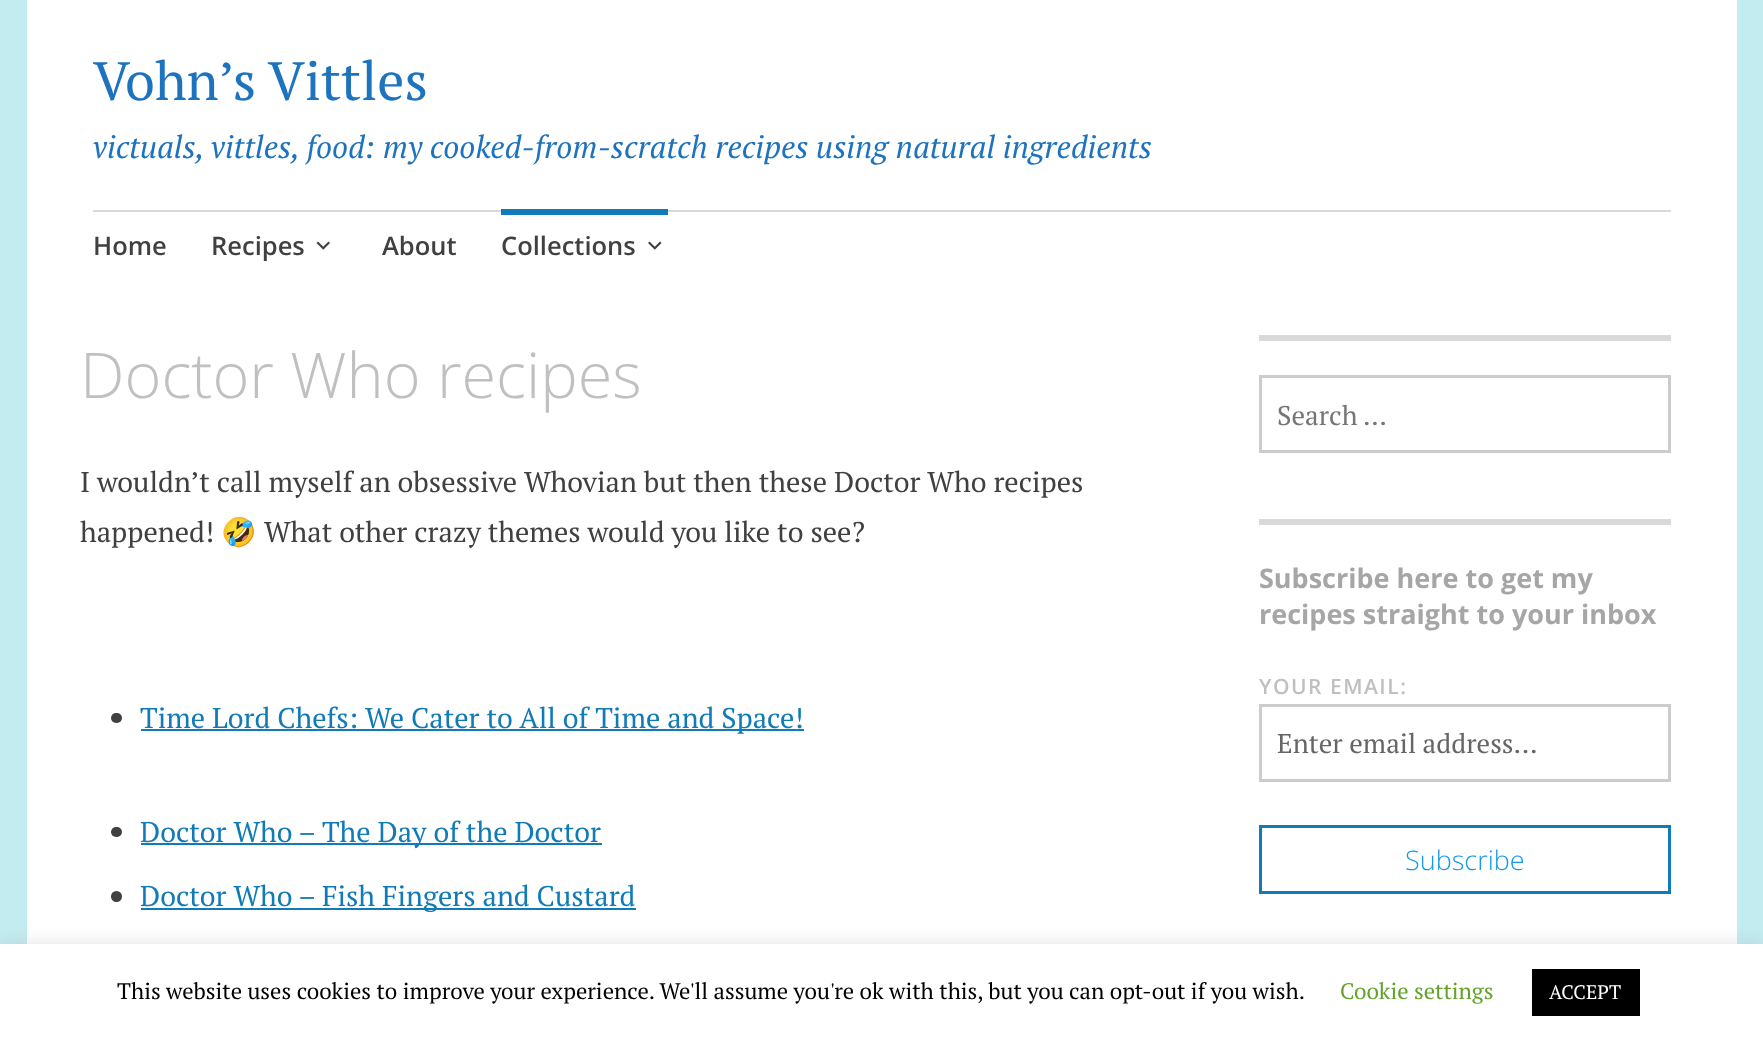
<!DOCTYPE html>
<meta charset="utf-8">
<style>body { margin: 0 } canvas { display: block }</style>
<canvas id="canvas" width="1763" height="1040"></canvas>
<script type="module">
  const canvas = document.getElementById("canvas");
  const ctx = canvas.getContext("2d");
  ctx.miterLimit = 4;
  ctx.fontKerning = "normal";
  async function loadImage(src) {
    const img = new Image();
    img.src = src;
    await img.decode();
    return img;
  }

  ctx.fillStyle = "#c2ecf0";
  ctx.fillRect(0, 0, 1763, 1040);
  ctx.fillStyle = "#ffffff";
  ctx.fillRect(27, 0, 1710, 944);
  ctx.font = "54px PT Serif";
  ctx.fillStyle = "#1e73be";
  ctx.fillText("Vohn’s Vittles", 93, 100);
  ctx.font = "italic 31.5px PT Serif";
  ctx.fillText("victuals, vittles, food: my cooked-from-scratch recipes using natural ingredients", 93, 158);
  ctx.fillStyle = "#d9d9d9";
  ctx.fillRect(93, 210, 1578, 2);
  ctx.font = "600 25.5px Open Sans";
  ctx.fillStyle = "#404040";
  ctx.fillText("Home", 93, 255);
  ctx.fillText("Recipes", 211, 255);
  ctx.drawImage(await loadImage("img1.png"), 316, 241, 14, 9);
  ctx.fillText("About", 382, 255);
  ctx.fillStyle = "#117bb8";
  ctx.fillRect(501, 209, 167, 6);
  ctx.fillStyle = "#404040";
  ctx.fillText("Collections", 501, 255);
  ctx.drawImage(await loadImage("img2.png"), 648, 241, 14, 9);
  ctx.font = "300 63px Open Sans";
  ctx.fillStyle = "#c0c0c0";
  ctx.fillText("Doctor Who recipes", 80, 398);
  ctx.font = "28.5px PT Serif";
  ctx.fillStyle = "#404040";
  ctx.fillText("I wouldn’t call myself an obsessive Whovian but then these Doctor Who recipes", 80, 492);
  ctx.fillText("happened!", 80, 542);
  ctx.font = "28.5px Noto Color Emoji";
  ctx.fillText("🤣", 221, 542);
  ctx.font = "28.5px PT Serif";
  ctx.fillText("What other crazy themes would you like to see?", 264, 542);
  ctx.beginPath();
  ctx.roundRect(111, 713, 11, 10, 5);
  ctx.fill();
  ctx.fillStyle = "#117bb8";
  ctx.fillRect(141, 729, 663, 2);
  ctx.fillText("Time Lord Chefs: We Cater to All of Time and Space!", 140, 728);
  ctx.fillStyle = "#404040";
  ctx.beginPath();
  ctx.roundRect(111, 827, 11, 10, 5);
  ctx.fill();
  ctx.fillStyle = "#117bb8";
  ctx.fillRect(141, 843, 461, 2);
  ctx.fillText("Doctor Who – The Day of the Doctor", 140, 842);
  ctx.fillStyle = "#404040";
  ctx.beginPath();
  ctx.arc(116.5, 896.5, 5.5, 0, Math.PI * 2);
  ctx.fill();
  ctx.fillStyle = "#117bb8";
  ctx.fillRect(141, 908, 495, 2);
  ctx.fillText("Doctor Who – Fish Fingers and Custard", 140, 906);
  ctx.fillStyle = "#d9d9d9";
  ctx.fillRect(1259, 335, 412, 6);
  ctx.strokeStyle = "#cccccc";
  ctx.lineWidth = 3;
  ctx.strokeRect(1260.5, 376.5, 409, 75);
  ctx.font = "27px PT Serif";
  ctx.fillStyle = "#757575";
  ctx.fillText("Search …", 1277, 425);
  ctx.fillStyle = "#d9d9d9";
  ctx.fillRect(1259, 519, 412, 6);
  ctx.font = "bold 27px Open Sans";
  ctx.fillStyle = "#a6a6a6";
  ctx.fillText("Subscribe here to get my", 1259, 588);
  ctx.fillText("recipes straight to your inbox", 1259, 624);
  ctx.letterSpacing = "1.5px";
  ctx.font = "600 21px Open Sans";
  ctx.fillStyle = "#c0c0c0";
  ctx.fillText("YOUR EMAIL:", 1259, 694);
  ctx.strokeRect(1260.5, 705.5, 409, 75);
  ctx.letterSpacing = "0px";
  ctx.font = "27px PT Serif";
  ctx.fillStyle = "#666666";
  ctx.fillText("Enter email address...", 1277, 753);
  ctx.strokeStyle = "#117bb8";
  ctx.strokeRect(1260.5, 826.5, 409, 66);
  ctx.font = "300 27px Open Sans";
  ctx.fillStyle = "#159ae7";
  ctx.fillText("Subscribe", 1405, 870);
  ctx.fillStyle = "rgba(172, 171, 171, 0.3)";
  ctx.filter = "blur(7.5px)";
  ctx.beginPath();
  ctx.rect(0, 942, 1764, 98);
  ctx.fill();
  ctx.filter = "none";
  ctx.fillStyle = "#ffffff";
  ctx.fillRect(0, 944, 1763, 96);
  ctx.font = "22.5px PT Serif";
  ctx.fillStyle = "#000000";
  ctx.fillText("This website uses cookies to improve your experience. We'll assume you're ok with this, but you can opt-out if you wish.", 117, 999);
  ctx.fillStyle = "#62a329";
  ctx.fillText("Cookie settings", 1340, 999);
  ctx.fillStyle = "#000000";
  ctx.fillRect(1532, 969, 108, 47);
  ctx.font = "19.5px PT Serif";
  ctx.fillStyle = "#ffffff";
  ctx.fillText("ACCEPT", 1549, 999);
</script>
